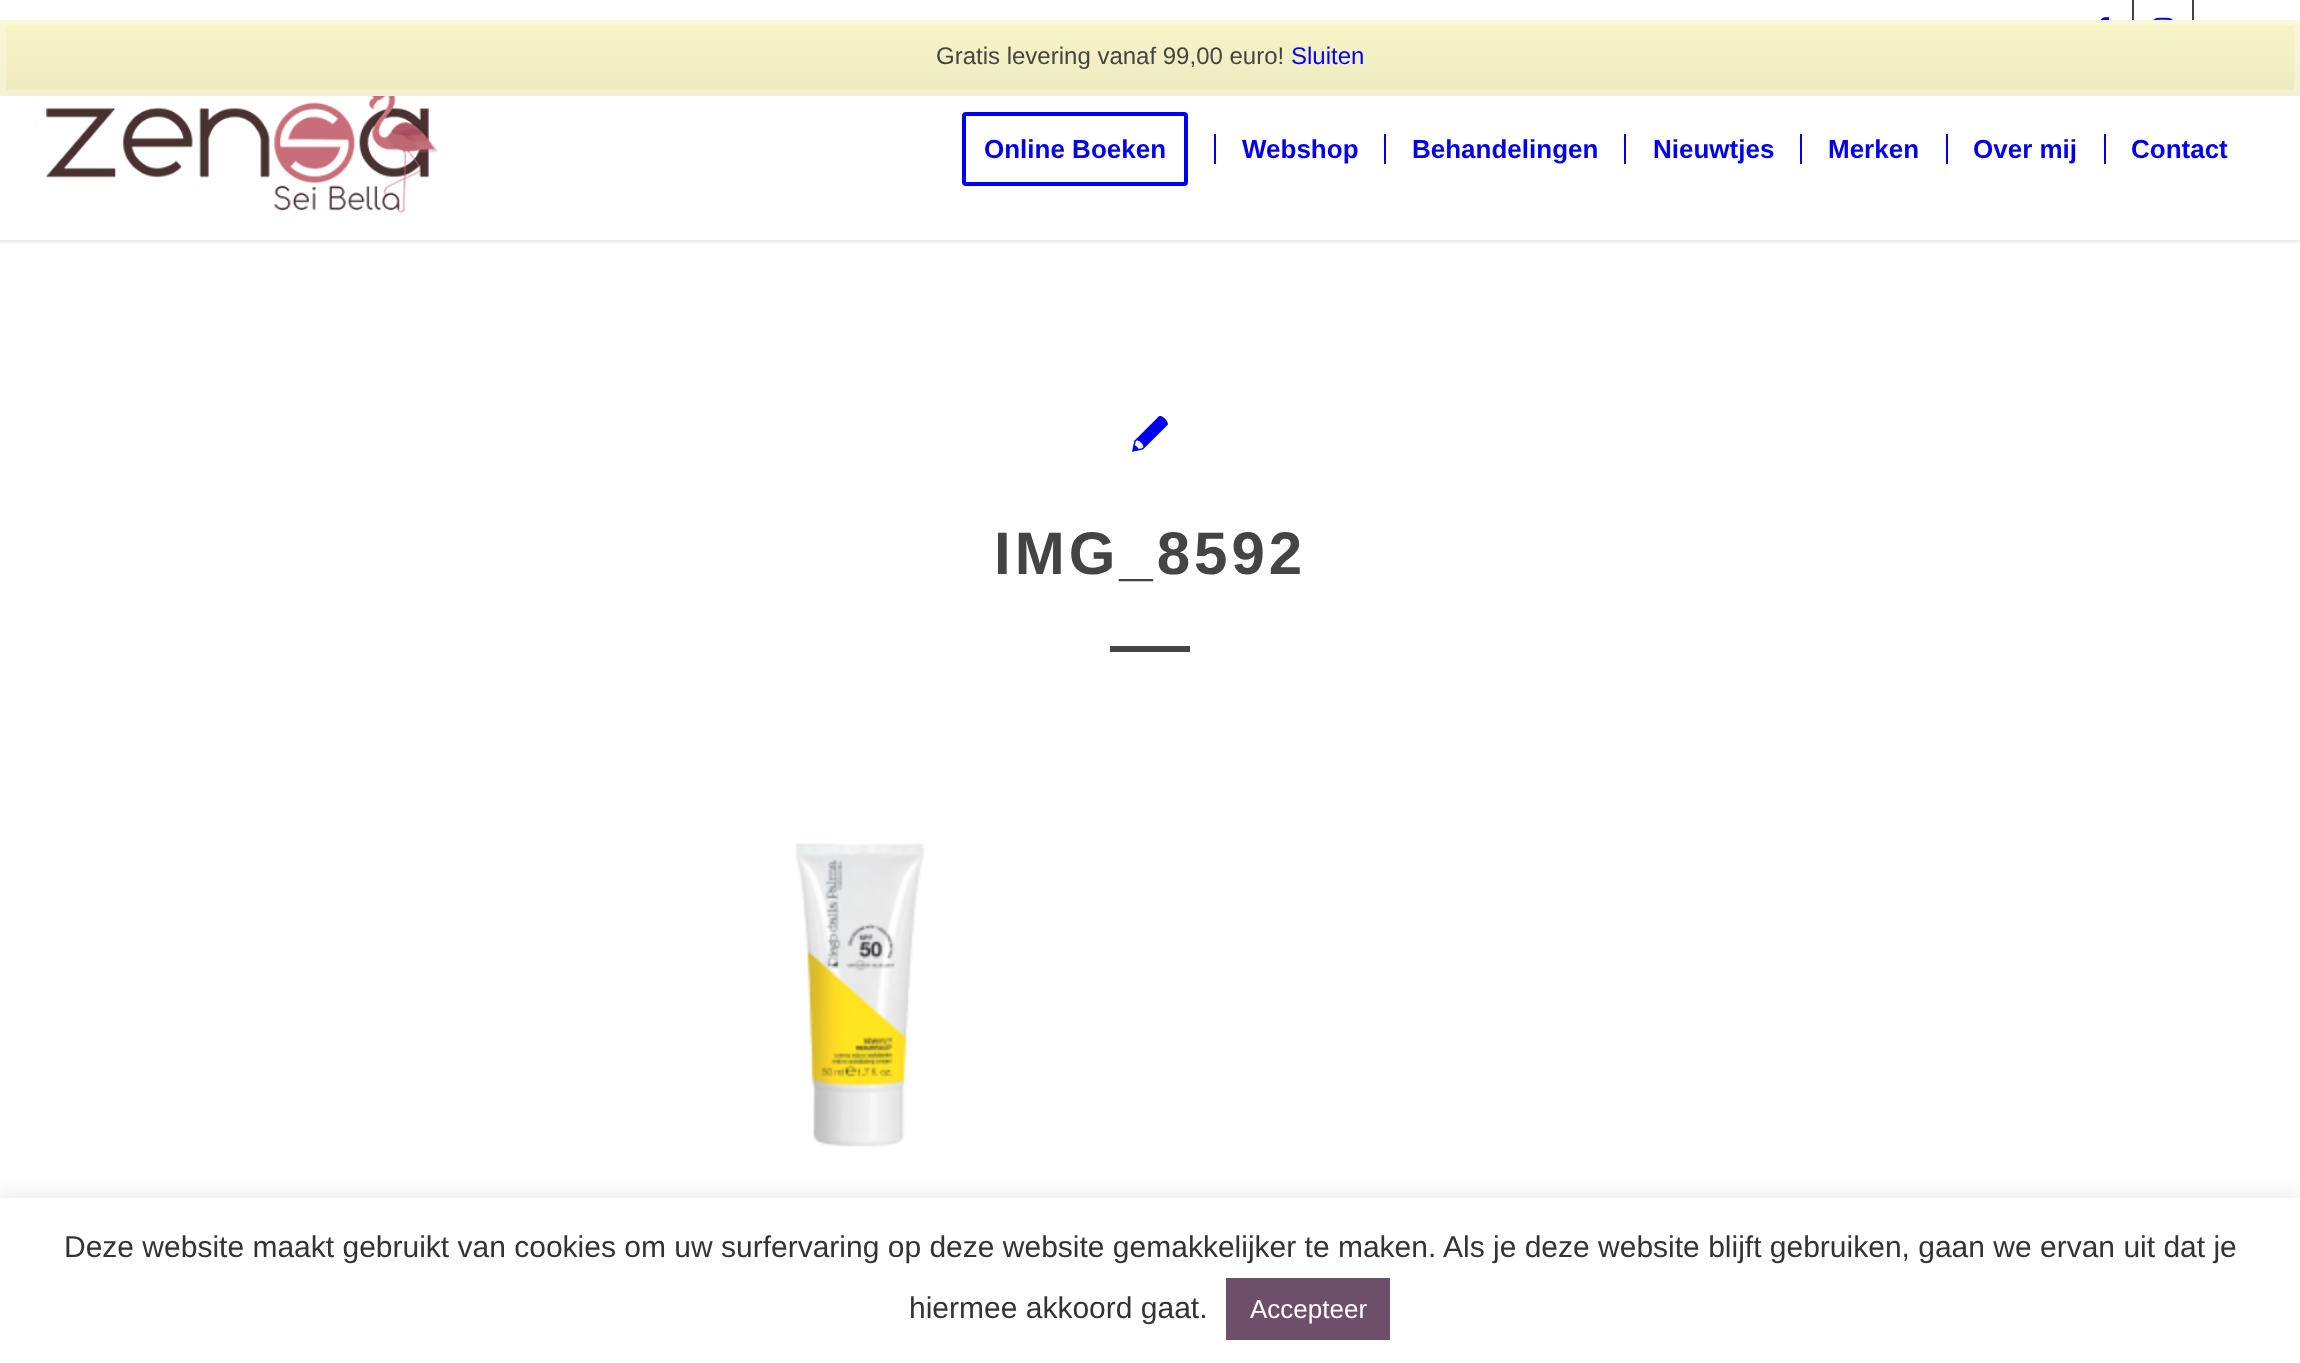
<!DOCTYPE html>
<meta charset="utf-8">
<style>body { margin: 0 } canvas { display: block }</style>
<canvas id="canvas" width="2300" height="1363"></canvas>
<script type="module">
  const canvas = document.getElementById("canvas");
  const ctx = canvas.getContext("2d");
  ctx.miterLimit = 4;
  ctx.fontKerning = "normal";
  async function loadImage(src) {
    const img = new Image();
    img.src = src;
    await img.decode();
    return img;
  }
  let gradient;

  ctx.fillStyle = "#ffffff";
  ctx.fillRect(0, 0, 2300, 1363);
  ctx.save();
  ctx.beginPath();
  ctx.rect(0, 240, 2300, 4);
  ctx.clip();
  ctx.fillStyle = "rgba(0, 0, 0, 0.1)";
  ctx.filter = "blur(2px)";
  ctx.beginPath();
  ctx.rect(-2, -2, 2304, 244);
  ctx.fill();
  ctx.filter = "none";
  ctx.restore();
  gradient = ctx.createLinearGradient(1150, 20, 1150, 96);
  gradient.addColorStop(0, "#f7f5c6");
  gradient.addColorStop(1, "#eeeac1");
  ctx.fillStyle = gradient;
  ctx.fillRect(0, 20, 2300, 76);
  ctx.strokeStyle = "rgba(255, 255, 255, 0.3)";
  ctx.lineWidth = 6;
  ctx.strokeRect(3, 23, 2294, 70);
  ctx.font = "24px Liberation Sans";
  ctx.fillStyle = "#444444";
  ctx.fillText("Gratis levering vanaf 99,00 euro!", 936, 64);
  ctx.fillStyle = "#0000ee";
  ctx.fillText("Sluiten", 1291, 64);
  ctx.fillStyle = "#444444";
  ctx.fillRect(2132, 0, 2, 20);
  ctx.drawImage(await loadImage("img1.png"), 2100, 17, 9, 3);
  ctx.fillRect(2192, 0, 2, 20);
  ctx.drawImage(await loadImage("img2.png"), 2153, 17, 20, 3);
  ctx.drawImage(await loadImage("img3.png"), 46, 96, 392, 117);
  ctx.beginPath();
  ctx.roundRect(964, 114, 222, 70, 2);
  ctx.strokeStyle = "#0000ee";
  ctx.lineWidth = 4;
  ctx.stroke();
  ctx.font = "bold 26px Liberation Sans";
  ctx.fillStyle = "#0000ee";
  ctx.fillText("Online Boeken", 984, 158);
  ctx.fillText("Webshop", 1242, 158);
  ctx.fillRect(1214, 134, 2, 30);
  ctx.fillText("Behandelingen", 1412, 158);
  ctx.fillRect(1384, 134, 2, 30);
  ctx.fillText("Nieuwtjes", 1653, 158);
  ctx.fillRect(1624, 134, 2, 30);
  ctx.fillText("Merken", 1828, 158);
  ctx.fillRect(1800, 134, 2, 30);
  ctx.fillText("Over mij", 1973, 158);
  ctx.fillRect(1946, 134, 2, 30);
  ctx.fillText("Contact", 2131, 158);
  ctx.fillRect(2104, 134, 2, 30);
  ctx.drawImage(await loadImage("img4.png"), 1132, 415, 36, 37);
  ctx.letterSpacing = "4px";
  ctx.font = "bold 60px Liberation Sans";
  ctx.fillStyle = "#444444";
  ctx.fillText("IMG_8592", 994, 574);
  ctx.fillRect(1110, 646, 80, 6);
  ctx.drawImage(await loadImage("img5.png"), 795, 843, 130, 304);
  ctx.fillStyle = "rgba(172, 171, 171, 0.3)";
  ctx.filter = "blur(10px)";
  ctx.beginPath();
  ctx.rect(0, 1196, 2300, 166);
  ctx.fill();
  ctx.filter = "none";
  ctx.fillStyle = "#ffffff";
  ctx.fillRect(0, 1198, 2300, 165);
  ctx.letterSpacing = "0px";
  ctx.font = "30px Liberation Sans";
  ctx.fillStyle = "#333333";
  ctx.fillText("Deze website maakt gebruikt van cookies om uw surfervaring op deze website gemakkelijker te maken. Als je deze website blijft gebruiken, gaan we ervan uit dat je", 64, 1257);
  ctx.fillText("hiermee akkoord gaat.", 909, 1318);
  ctx.fillStyle = "#6d4f69";
  ctx.fillRect(1226, 1278, 164, 62);
  ctx.font = "26px Liberation Sans";
  ctx.fillStyle = "#ffffff";
  ctx.fillText("Accepteer", 1250, 1318);
</script>
